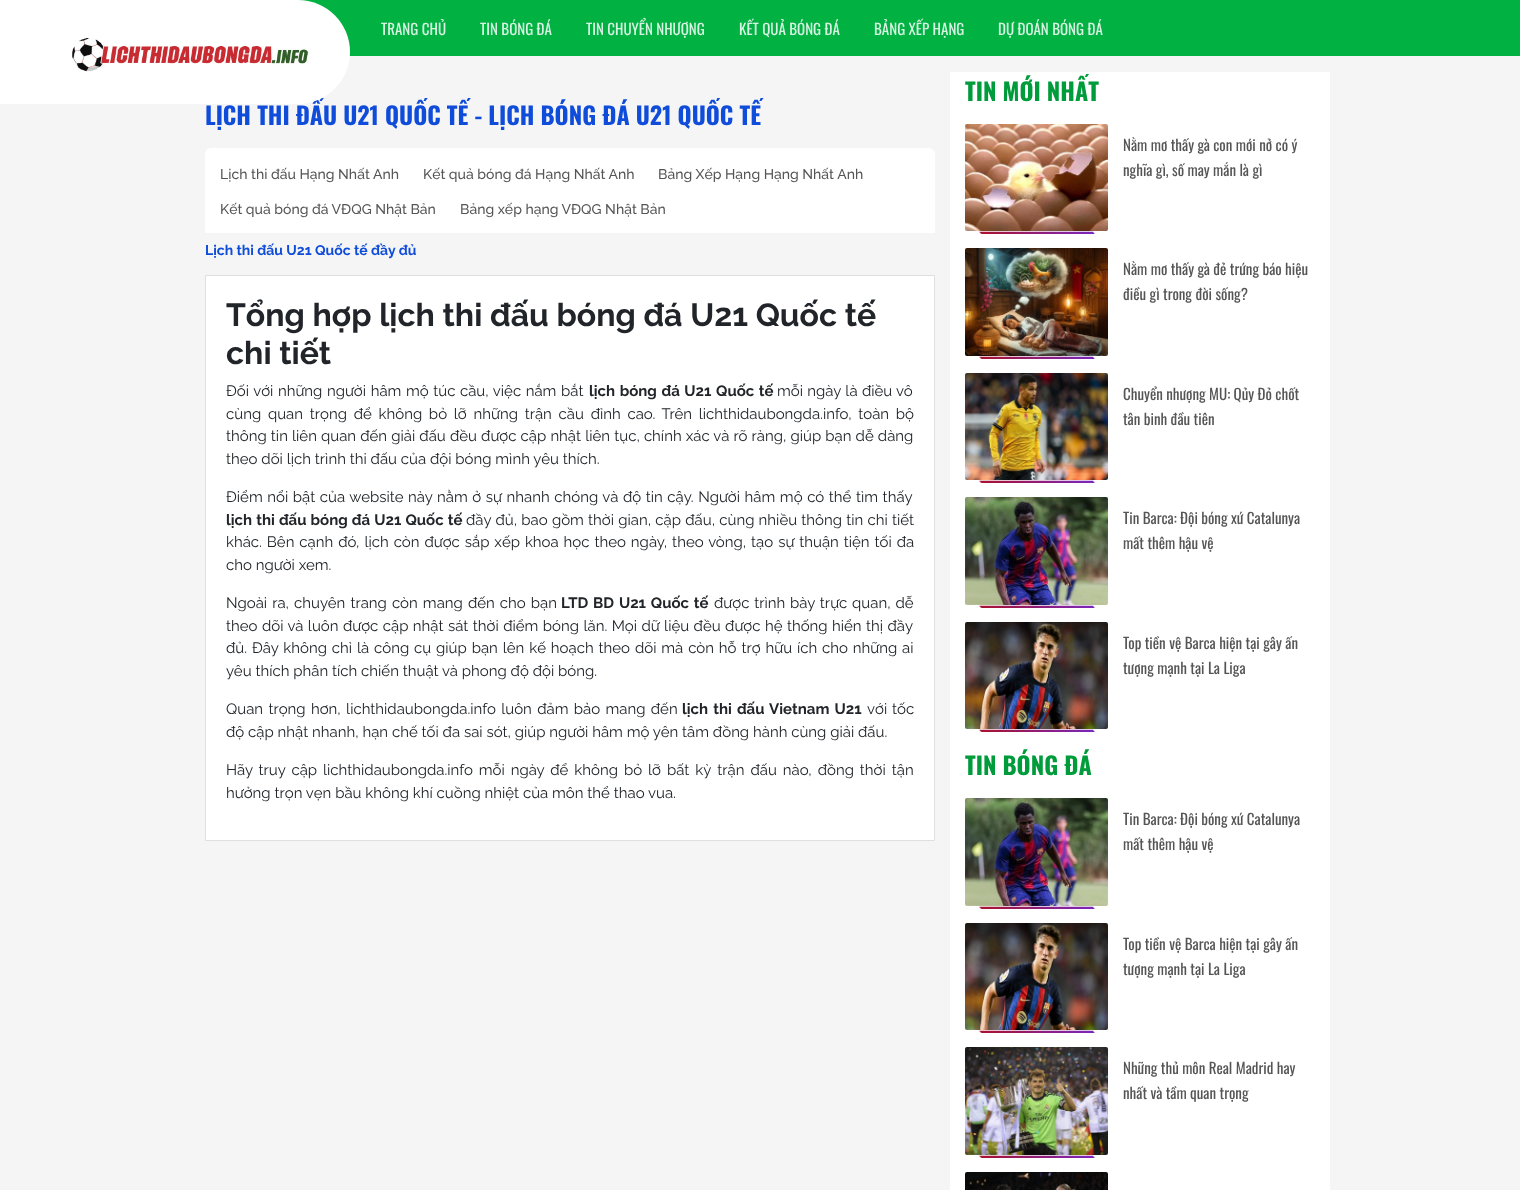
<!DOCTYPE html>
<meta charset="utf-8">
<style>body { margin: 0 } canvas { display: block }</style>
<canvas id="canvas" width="1520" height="1190"></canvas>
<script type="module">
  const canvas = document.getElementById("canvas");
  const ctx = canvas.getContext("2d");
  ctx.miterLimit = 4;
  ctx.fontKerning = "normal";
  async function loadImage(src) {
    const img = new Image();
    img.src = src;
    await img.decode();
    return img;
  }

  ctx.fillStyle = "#f5f5f5";
  ctx.fillRect(0, 0, 1520, 1190);
  ctx.fillStyle = "#01b243";
  ctx.fillRect(298, 0, 1222, 56);
  ctx.font = "bold 24px Oswald";
  ctx.fillStyle = "#0f4cd9";
  ctx.fillText("LỊCH THI ĐẤU U21 QUỐC TẾ - LỊCH BÓNG ĐÁ U21 QUỐC TẾ", 205, 125);
  ctx.fillStyle = "#ffffff";
  ctx.beginPath();
  ctx.roundRect(30, 0, 320, 104, [0, 52, 52, 0]);
  ctx.fill();
  ctx.fillRect(0, 0, 30, 104);
  ctx.drawImage(await loadImage("img1.png"), 72, 38, 237, 34);
  ctx.font = "15px Oswald";
  ctx.fillStyle = "#d9f3e3";
  ctx.fillText("TRANG CHỦ", 381, 35);
  ctx.fillText("TIN BÓNG ĐÁ", 480, 35);
  ctx.fillText("TIN CHUYỂN NHƯỢNG", 586, 35);
  ctx.fillText("KẾT QUẢ BÓNG ĐÁ", 739, 35);
  ctx.fillText("BẢNG XẾP HẠNG", 874, 35);
  ctx.fillText("DỰ ĐOÁN BÓNG ĐÁ", 998, 35);
  ctx.fillStyle = "#ffffff";
  ctx.beginPath();
  ctx.roundRect(205, 148, 730, 85, [6, 6, 0, 0]);
  ctx.fill();
  ctx.font = "500 14px Raleway";
  ctx.fillStyle = "#555555";
  ctx.fillText("Lịch thi đấu Hạng Nhất Anh", 220, 179);
  ctx.fillText("Kết quả bóng đá Hạng Nhất Anh", 423, 179);
  ctx.fillText("Bảng Xếp Hạng Hạng Nhất Anh", 658, 179);
  ctx.fillText("Kết quả bóng đá VĐQG Nhật Bản", 220, 214);
  ctx.fillText("Bảng xếp hạng VĐQG Nhật Bản", 460, 214);
  ctx.font = "bold 14px Raleway";
  ctx.fillStyle = "#0f4cd9";
  ctx.fillText("Lịch thi đấu U21 Quốc tế đầy đủ", 205, 255);
  ctx.fillStyle = "#ffffff";
  ctx.beginPath();
  ctx.rect(205.5, 275.5, 729, 565);
  ctx.fill();
  ctx.strokeStyle = "#dfdfdf";
  ctx.stroke();
  ctx.font = "bold 32px Raleway";
  ctx.fillStyle = "#212529";
  ctx.fillText("Tổng hợp lịch thi đấu bóng đá U21 Quốc tế", 226, 326);
  ctx.fillText("chi tiết", 226, 364);
  ctx.wordSpacing = "0.75px";
  ctx.font = "15px Raleway";
  ctx.fillText("Đối với những người hâm mộ túc cầu, việc nắm bắt", 226, 396);
  ctx.wordSpacing = "1px";
  ctx.font = "bold 15px Raleway";
  ctx.fillText("lịch bóng đá U21 Quốc tế", 589, 396);
  ctx.wordSpacing = "0.5px";
  ctx.font = "15px Raleway";
  ctx.fillText("mỗi ngày là điều vô", 777, 396);
  ctx.wordSpacing = "2.9px";
  ctx.fillText("cùng quan trọng để không bỏ lỡ những trận cầu đỉnh cao. Trên lichthidaubongda.info, toàn bộ", 226, 419);
  ctx.wordSpacing = "0.3px";
  ctx.fillText("thông tin liên quan đến giải đấu đều được cập nhật liên tục, chính xác và rõ ràng, giúp bạn dễ dàng", 226, 441);
  ctx.wordSpacing = "0px";
  ctx.fillText("theo dõi lịch trình thi đấu của đội bóng mình yêu thích.", 226, 464);
  ctx.wordSpacing = "0.75px";
  ctx.fillText("Điểm nổi bật của website này nằm ở sự nhanh chóng và độ tin cậy. Người hâm mộ có thể tìm thấy", 226, 502);
  ctx.wordSpacing = "0.5px";
  ctx.font = "bold 15px Raleway";
  ctx.fillText("lịch thi đấu bóng đá U21 Quốc tế", 226, 525);
  ctx.wordSpacing = "0.4px";
  ctx.font = "15px Raleway";
  ctx.fillText("đầy đủ, bao gồm thời gian, cặp đấu, cùng nhiều thông tin chi tiết", 466, 525);
  ctx.wordSpacing = "1.1px";
  ctx.fillText("khác. Bên cạnh đó, lịch còn được sắp xếp khoa học theo ngày, theo vòng, tạo sự thuận tiện tối đa", 226, 547);
  ctx.wordSpacing = "0px";
  ctx.fillText("cho người xem.", 226, 570);
  ctx.wordSpacing = "1.25px";
  ctx.fillText("Ngoài ra, chuyên trang còn mang đến cho bạn", 226, 608);
  ctx.font = "bold 15px Raleway";
  ctx.fillText("LTD BD U21 Quốc tế", 561, 608);
  ctx.wordSpacing = "1px";
  ctx.font = "15px Raleway";
  ctx.fillText("được trình bày trực quan, dễ", 714, 608);
  ctx.wordSpacing = "0.6px";
  ctx.fillText("theo dõi và luôn được cập nhật sát thời điểm bóng lăn. Mọi dữ liệu đều được hệ thống hiển thị đầy", 226, 631);
  ctx.wordSpacing = "1.05px";
  ctx.fillText("đủ. Đây không chỉ là công cụ giúp bạn lên kế hoạch theo dõi mà còn hỗ trợ hữu ích cho những ai", 226, 653);
  ctx.wordSpacing = "0px";
  ctx.fillText("yêu thích phân tích chiến thuật và phong độ đội bóng.", 226, 676);
  ctx.wordSpacing = "1.5px";
  ctx.fillText("Quan trọng hơn, lichthidaubongda.info luôn đảm bảo mang đến", 226, 714);
  ctx.font = "bold 15px Raleway";
  ctx.fillText("lịch thi đấu Vietnam U21", 682, 714);
  ctx.wordSpacing = "1px";
  ctx.font = "15px Raleway";
  ctx.fillText("với tốc", 867, 714);
  ctx.wordSpacing = "0px";
  ctx.fillText("độ cập nhật nhanh, hạn chế tối đa sai sót, giúp người hâm mộ yên tâm đồng hành cùng giải đấu.", 226, 737);
  ctx.wordSpacing = "2.1px";
  ctx.fillText("Hãy truy cập lichthidaubongda.info mỗi ngày để không bỏ lỡ bất kỳ trận đấu nào, đồng thời tận", 226, 775);
  ctx.wordSpacing = "0px";
  ctx.fillText("hưởng trọn vẹn bầu không khí cuồng nhiệt của môn thể thao vua.", 226, 798);
  ctx.fillStyle = "#ffffff";
  ctx.fillRect(950, 72, 380, 1118);
  ctx.font = "bold 24px Oswald";
  ctx.fillStyle = "#009b3a";
  ctx.fillText("TIN MỚI NHẤT", 965, 101);
  ctx.drawImage(await loadImage("img2.png"), 965, 124, 143, 107);
  ctx.drawImage(await loadImage("img3.png"), 978, 231, 117, 3);
  ctx.font = "15px Oswald";
  ctx.fillStyle = "#555555";
  ctx.fillText("Nằm mơ thấy gà con mới nở có ý", 1123, 151);
  ctx.fillText("nghĩa gì, số may mắn là gì", 1123, 176);
  ctx.drawImage(await loadImage("img4.png"), 965, 248, 143, 108);
  ctx.drawImage(await loadImage("img3.png"), 978, 356, 117, 3);
  ctx.fillText("Nằm mơ thấy gà đẻ trứng báo hiệu", 1123, 275);
  ctx.fillText("điều gì trong đời sống?", 1123, 300);
  ctx.drawImage(await loadImage("img5.png"), 965, 373, 143, 107);
  ctx.drawImage(await loadImage("img3.png"), 978, 480, 117, 3);
  ctx.fillText("Chuyển nhượng MU: Qủy Đỏ chốt", 1123, 400);
  ctx.fillText("tân binh đầu tiên", 1123, 425);
  ctx.drawImage(await loadImage("img6.png"), 965, 497, 143, 108);
  ctx.drawImage(await loadImage("img3.png"), 978, 605, 117, 3);
  ctx.fillText("Tin Barca: Đội bóng xứ Catalunya", 1123, 524);
  ctx.fillText("mất thêm hậu vệ", 1123, 549);
  ctx.drawImage(await loadImage("img7.png"), 965, 622, 143, 107);
  ctx.drawImage(await loadImage("img3.png"), 978, 729, 117, 3);
  ctx.fillText("Top tiền vệ Barca hiện tại gây ấn", 1123, 649);
  ctx.fillText("tượng mạnh tại La Liga", 1123, 674);
  ctx.font = "bold 24px Oswald";
  ctx.fillStyle = "#009b3a";
  ctx.fillText("TIN BÓNG ĐÁ", 965, 775);
  ctx.drawImage(await loadImage("img6.png"), 965, 798, 143, 108);
  ctx.drawImage(await loadImage("img3.png"), 978, 906, 117, 3);
  ctx.font = "15px Oswald";
  ctx.fillStyle = "#555555";
  ctx.fillText("Tin Barca: Đội bóng xứ Catalunya", 1123, 825);
  ctx.fillText("mất thêm hậu vệ", 1123, 850);
  ctx.drawImage(await loadImage("img7.png"), 965, 923, 143, 107);
  ctx.drawImage(await loadImage("img3.png"), 978, 1030, 117, 3);
  ctx.fillText("Top tiền vệ Barca hiện tại gây ấn", 1123, 950);
  ctx.fillText("tượng mạnh tại La Liga", 1123, 975);
  ctx.drawImage(await loadImage("img8.png"), 965, 1047, 143, 108);
  ctx.drawImage(await loadImage("img3.png"), 978, 1155, 117, 3);
  ctx.fillText("Những thủ môn Real Madrid hay", 1123, 1074);
  ctx.fillText("nhất và tầm quan trọng", 1123, 1099);
  ctx.drawImage(await loadImage("img9.png"), 965, 1172, 143, 18);
</script>
